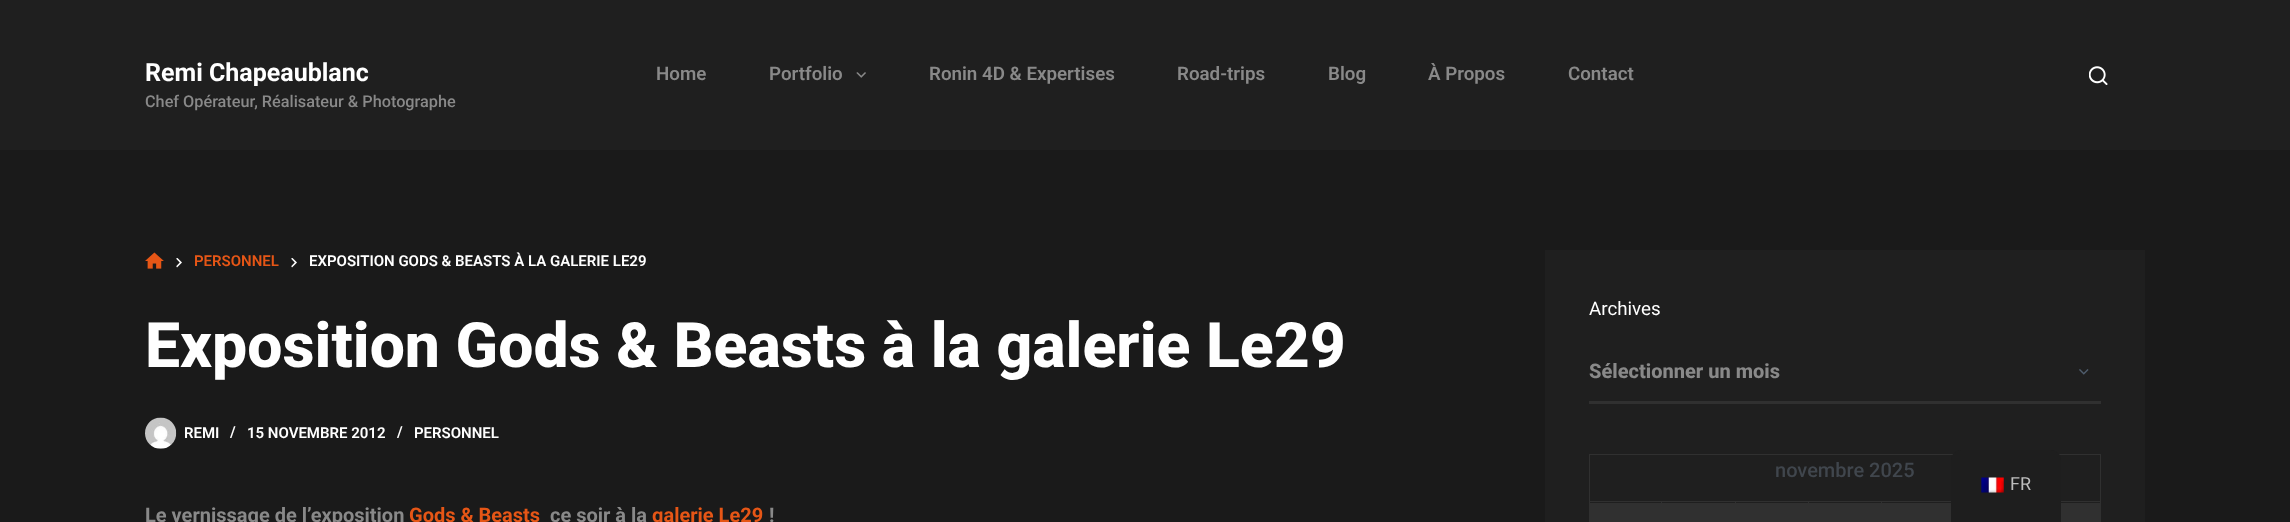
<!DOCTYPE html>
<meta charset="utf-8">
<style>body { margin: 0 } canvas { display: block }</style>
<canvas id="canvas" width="2290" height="522"></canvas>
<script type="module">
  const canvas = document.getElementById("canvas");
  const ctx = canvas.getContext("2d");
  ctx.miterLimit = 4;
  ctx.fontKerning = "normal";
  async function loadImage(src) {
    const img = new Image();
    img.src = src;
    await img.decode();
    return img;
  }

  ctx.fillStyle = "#1a1a1a";
  ctx.fillRect(0, 0, 2290, 522);
  ctx.fillStyle = "#1f1f1f";
  ctx.fillRect(0, 0, 2290, 150);
  ctx.font = "bold 25px Roboto";
  ctx.fillStyle = "#ffffff";
  ctx.fillText("Remi Chapeaublanc", 145, 81);
  ctx.font = "500 16.25px Roboto";
  ctx.fillStyle = "#898989";
  ctx.fillText("Chef Opérateur, Réalisateur & Photographe", 145, 107);
  ctx.font = "600 18.75px Roboto";
  ctx.fillText("Home", 656, 80);
  ctx.fillText("Portfolio", 769, 80);
  ctx.drawImage(await loadImage("img1.png"), 856, 72, 10, 6);
  ctx.fillText("Ronin 4D & Expertises", 929, 80);
  ctx.fillText("Road-trips", 1177, 80);
  ctx.fillText("Blog", 1328, 80);
  ctx.fillText("À Propos", 1428, 80);
  ctx.fillText("Contact", 1568, 80);
  ctx.drawImage(await loadImage("img2.png"), 2089, 66, 19, 19);
  ctx.drawImage(await loadImage("img3.png"), 145, 252, 19, 17);
  ctx.drawImage(await loadImage("img4.png"), 176, 258, 6, 10);
  ctx.font = "600 15px Roboto";
  ctx.fillStyle = "#e65616";
  ctx.fillText("PERSONNEL", 194, 266);
  ctx.drawImage(await loadImage("img4.png"), 291, 258, 6, 10);
  ctx.fillStyle = "#ffffff";
  ctx.fillText("EXPOSITION GODS & BEASTS À LA GALERIE LE29", 309, 266);
  ctx.font = "800 62.5px Roboto";
  ctx.fillText("Exposition Gods & Beasts à la galerie Le29", 145, 367);
  ctx.drawImage(await loadImage("img5.png"), 145, 417, 32, 32);
  ctx.font = "600 15px Roboto";
  ctx.fillText("REMI", 184, 438);
  ctx.fillText("/", 230, 437);
  ctx.fillText("15 NOVEMBRE 2012", 247, 438);
  ctx.fillText("/", 397, 437);
  ctx.fillText("PERSONNEL", 414, 438);
  ctx.font = "bold 20px Roboto";
  ctx.fillStyle = "#898989";
  ctx.fillText("Le vernissage de l’exposition", 145, 522);
  ctx.fillStyle = "#e65616";
  ctx.fillText("Gods & Beasts", 409, 522);
  ctx.fillStyle = "#898989";
  ctx.fillText("ce soir à la", 550, 522);
  ctx.fillStyle = "#e65616";
  ctx.fillText("galerie Le29", 652, 522);
  ctx.fillStyle = "#898989";
  ctx.fillText("!", 769, 522);
  ctx.fillStyle = "#1f1f1f";
  ctx.fillRect(1545, 250, 600, 272);
  ctx.font = "18.75px Roboto";
  ctx.fillStyle = "#ffffff";
  ctx.fillText("Archives", 1589, 315);
  ctx.drawImage(await loadImage("img6.png"), 2079, 369, 10, 6);
  ctx.fillStyle = "#303030";
  ctx.fillRect(1589, 401, 512, 3);
  ctx.font = "800 20px Roboto";
  ctx.fillStyle = "#898989";
  ctx.fillText("Sélectionner un mois", 1589, 378);
  ctx.fillStyle = "#303030";
  ctx.fillRect(1589, 454, 512, 1);
  ctx.fillRect(2100, 454, 1, 68);
  ctx.fillRect(1589, 454, 1, 68);
  ctx.font = "500 20px Roboto";
  ctx.fillStyle = "#40464d";
  ctx.fillText("novembre 2025", 1775, 477);
  ctx.fillStyle = "#303030";
  ctx.fillRect(1590, 503, 145, 19);
  ctx.fillRect(1881, 501, 74, 1);
  ctx.fillRect(1881, 501, 1, 21);
  ctx.fillRect(1808, 501, 75, 1);
  ctx.fillRect(1808, 501, 1, 21);
  ctx.fillRect(1735, 501, 74, 1);
  ctx.fillRect(1735, 501, 1, 21);
  ctx.fillRect(1661, 501, 75, 1);
  ctx.fillRect(1661, 501, 1, 2);
  ctx.fillRect(1589, 501, 74, 1);
  ctx.fillRect(1736, 503, 72, 19);
  ctx.fillRect(1809, 503, 72, 19);
  ctx.fillRect(1882, 503, 69, 19);
  ctx.fillRect(2061, 503, 39, 19);
  ctx.fillRect(2061, 501, 40, 1);
  ctx.fillStyle = "#1e1e1e";
  ctx.beginPath();
  ctx.moveTo(1961, 450);
  ctx.lineTo(2051, 450);
  ctx.bezierCurveTo(2056.5, 450, 2061, 454.5, 2061, 460);
  ctx.lineTo(2061, 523);
  ctx.lineTo(1951, 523);
  ctx.lineTo(1951, 460);
  ctx.bezierCurveTo(1951, 454.5, 1955.5, 450, 1961, 450);
  ctx.closePath();
  ctx.fill();
  ctx.drawImage(await loadImage("img7.png"), 1981, 477, 23, 16);
  ctx.font = "18px Roboto";
  ctx.fillStyle = "#bdbdbd";
  ctx.fillText("FR", 2010, 490);
</script>
